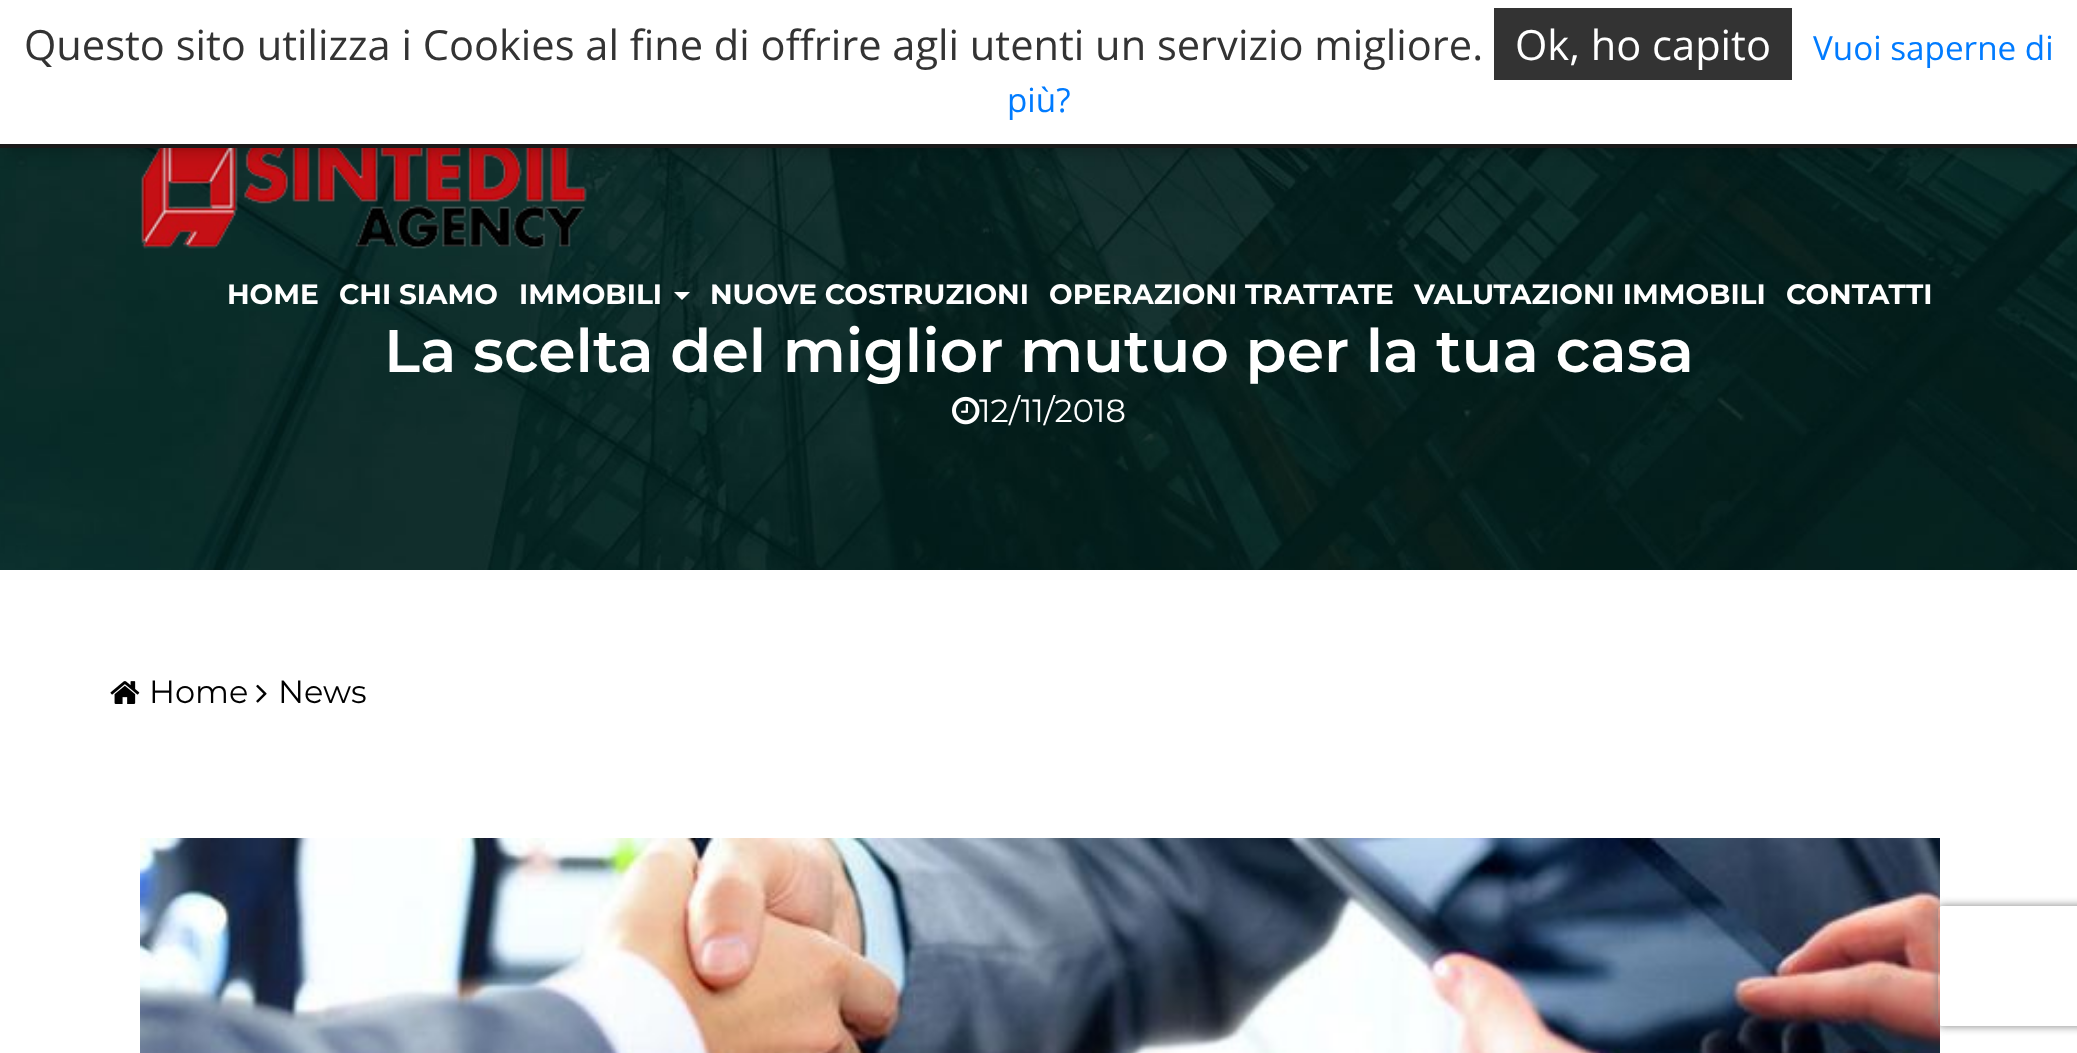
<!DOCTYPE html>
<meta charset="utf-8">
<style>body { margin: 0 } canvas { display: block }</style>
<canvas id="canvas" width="2077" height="1053"></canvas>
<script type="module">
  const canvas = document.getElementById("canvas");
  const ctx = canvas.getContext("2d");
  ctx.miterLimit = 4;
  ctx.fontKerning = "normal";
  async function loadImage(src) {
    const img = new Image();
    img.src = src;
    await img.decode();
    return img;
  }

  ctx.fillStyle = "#ffffff";
  ctx.fillRect(0, 0, 2077, 1053);
  ctx.drawImage(await loadImage("img2.png"), 0, 148, 2077, 422);
  ctx.drawImage(await loadImage("img1.png"), 141, 148, 446, 101);
  ctx.fillStyle = "rgba(0, 0, 0, 0.3)";
  ctx.filter = "blur(10px)";
  ctx.beginPath();
  ctx.rect(0, 0, 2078, 148);
  ctx.fill();
  ctx.filter = "none";
  ctx.fillStyle = "#ffffff";
  ctx.fillRect(0, 0, 2077, 144);
  ctx.fillStyle = "#1a1a1a";
  ctx.fillRect(0, 144, 2077, 4);
  ctx.font = "41.6px Open Sans";
  ctx.fillStyle = "#333333";
  ctx.fillText("Questo sito utilizza i Cookies al fine di offrire agli utenti un servizio migliore.", 24, 60);
  ctx.fillRect(1494, 8, 298, 72);
  ctx.fillStyle = "#ffffff";
  ctx.fillText("Ok, ho capito", 1515, 60);
  ctx.font = "33.25px Open Sans";
  ctx.fillStyle = "#007bff";
  ctx.fillText("Vuoi saperne di", 1813, 60);
  ctx.fillText("più?", 1007, 112);
  ctx.font = "bold 28px Montserrat";
  ctx.fillStyle = "#ffffff";
  ctx.fillText("HOME", 227, 304);
  ctx.fillText("CHI SIAMO", 339, 304);
  ctx.fillText("IMMOBILI", 519, 304);
  ctx.beginPath();
  ctx.moveTo(674, 292);
  ctx.lineTo(690, 292);
  ctx.lineTo(682, 300);
  ctx.closePath();
  ctx.fill();
  ctx.fillText("NUOVE COSTRUZIONI", 710, 304);
  ctx.fillText("OPERAZIONI TRATTATE", 1049, 304);
  ctx.fillText("VALUTAZIONI IMMOBILI", 1414, 304);
  ctx.fillText("CONTATTI", 1786, 304);
  ctx.font = "600 60px Montserrat";
  ctx.fillText("La scelta del miglior mutuo per la tua casa", 384, 372);
  ctx.drawImage(await loadImage("img3.png"), 952, 396, 28, 29);
  ctx.font = "32px Montserrat";
  ctx.fillText("12/11/2018", 979, 422);
  ctx.drawImage(await loadImage("img4.png"), 110, 681, 30, 23);
  ctx.fillStyle = "#000000";
  ctx.fillText("Home", 149, 703);
  ctx.drawImage(await loadImage("img5.png"), 256, 684, 11, 19);
  ctx.fillText("News", 278, 703);
  ctx.drawImage(await loadImage("img6.png"), 140, 838, 1800, 215);
  ctx.save();
  ctx.beginPath();
  ctx.moveTo(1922, 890);
  ctx.lineTo(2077, 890);
  ctx.lineTo(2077, 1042);
  ctx.lineTo(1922, 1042);
  ctx.closePath();
  ctx.moveTo(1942, 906);
  ctx.lineTo(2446, 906);
  ctx.bezierCurveTo(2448, 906, 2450, 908, 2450, 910);
  ctx.lineTo(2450, 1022);
  ctx.bezierCurveTo(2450, 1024, 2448, 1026, 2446, 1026);
  ctx.lineTo(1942, 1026);
  ctx.bezierCurveTo(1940, 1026, 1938, 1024, 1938, 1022);
  ctx.lineTo(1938, 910);
  ctx.bezierCurveTo(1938, 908, 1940, 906, 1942, 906);
  ctx.closePath();
  ctx.clip("evenodd");
  ctx.fillStyle = "#808080";
  ctx.filter = "blur(5px)";
  ctx.beginPath();
  ctx.roundRect(1938, 906, 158, 120, 4);
  ctx.fill();
  ctx.filter = "none";
  ctx.restore();
</script>
